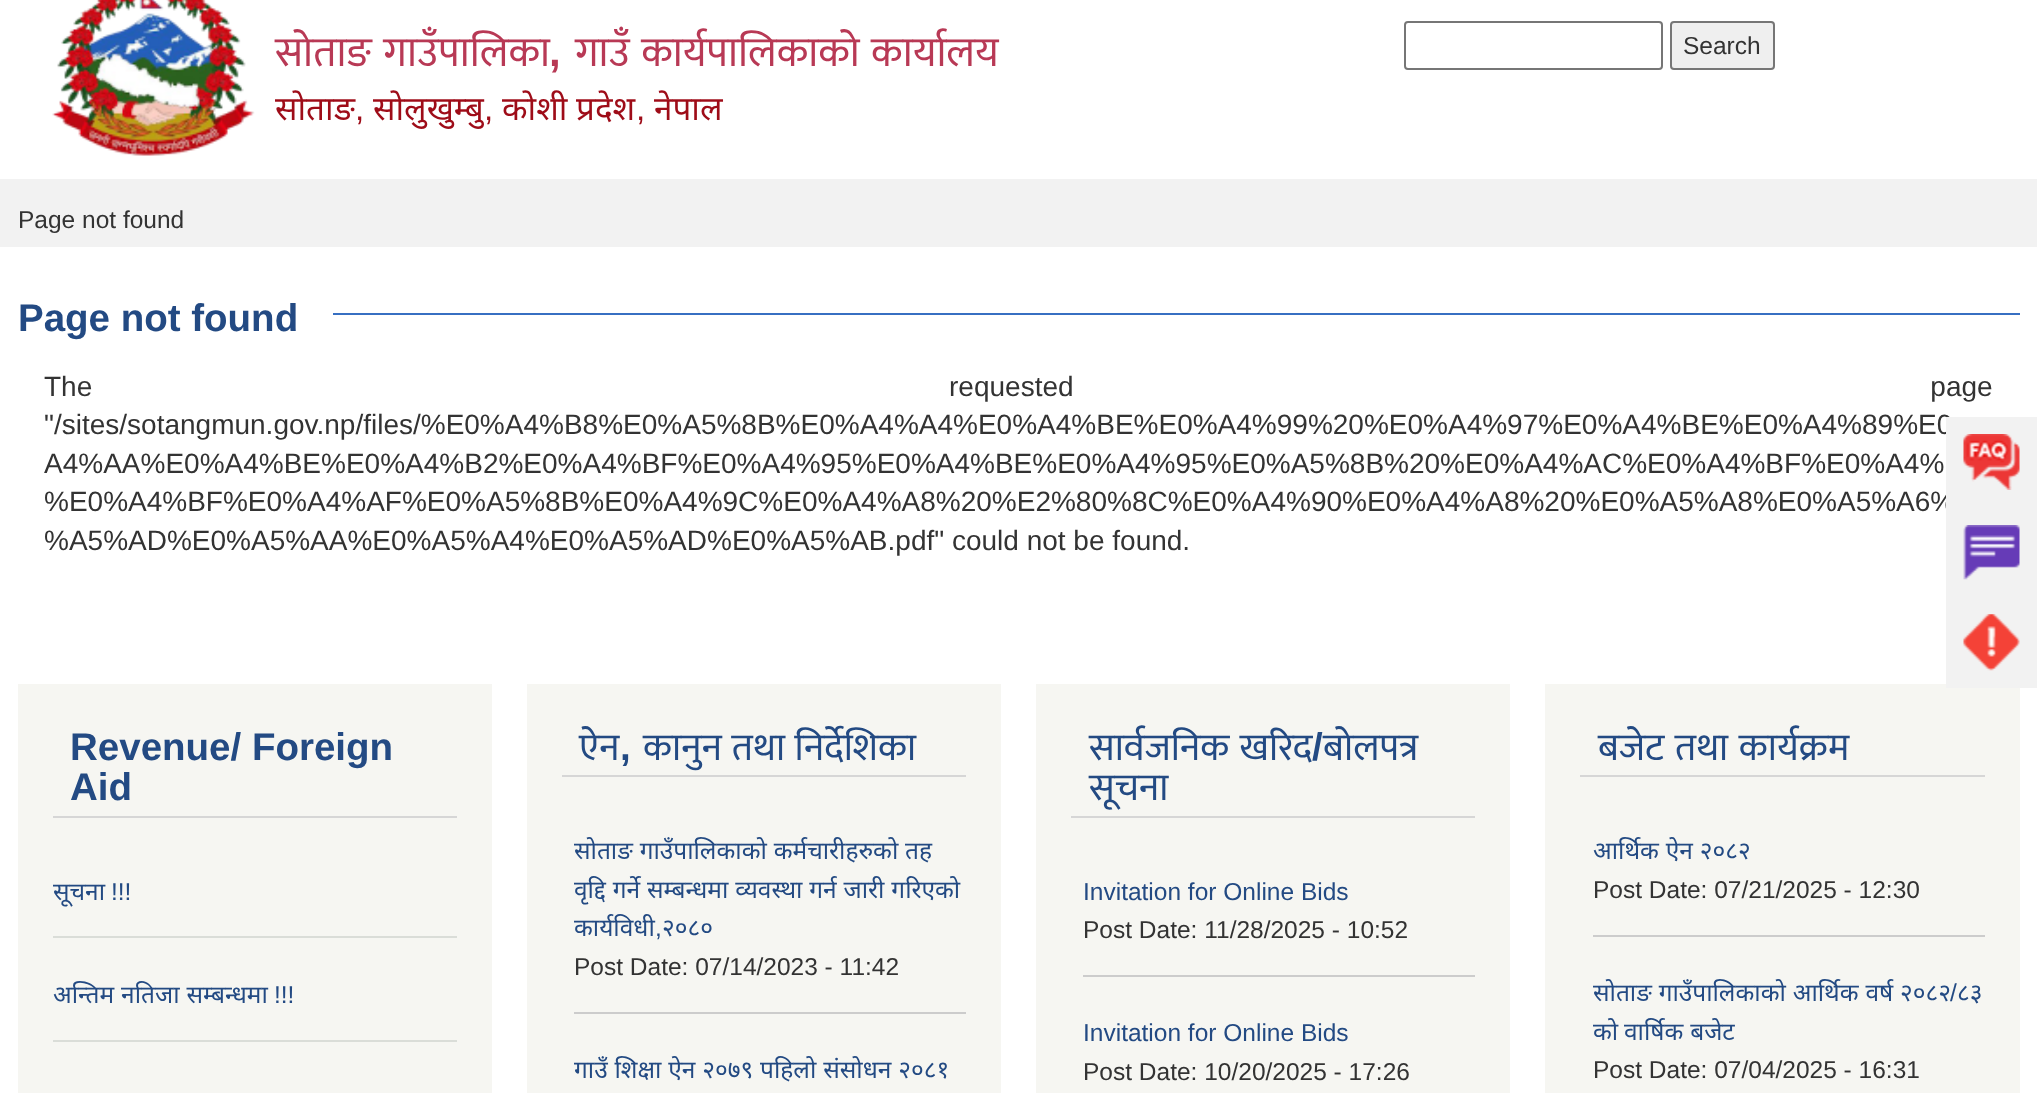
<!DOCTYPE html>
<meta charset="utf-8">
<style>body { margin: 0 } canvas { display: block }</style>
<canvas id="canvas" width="2037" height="1093"></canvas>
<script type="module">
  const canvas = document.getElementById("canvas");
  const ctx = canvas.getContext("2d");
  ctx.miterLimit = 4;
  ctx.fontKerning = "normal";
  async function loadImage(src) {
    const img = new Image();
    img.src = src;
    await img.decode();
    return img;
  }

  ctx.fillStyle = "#ffffff";
  ctx.fillRect(0, 0, 2037, 1093);
  ctx.drawImage(await loadImage("img1.png"), 52, 0, 203, 156);
  ctx.wordSpacing = "2px";
  ctx.font = "42px Mukta";
  ctx.fillStyle = "#b83955";
  ctx.fillText("सोताङ गाउँपालिका", 275, 66);
  ctx.wordSpacing = "0px";
  ctx.font = "bold 42px Liberation Sans";
  ctx.fillText(",", 549, 66);
  ctx.wordSpacing = "2px";
  ctx.font = "42px Mukta";
  ctx.fillText("गाउँ कार्यपालिकाको कार्यालय", 575, 66);
  ctx.wordSpacing = "0px";
  ctx.font = "33.25px Noto Sans";
  ctx.fillStyle = "#9e0c18";
  ctx.fillText("सोताङ", 275, 120);
  ctx.font = "33.25px Liberation Sans";
  ctx.fillText(",", 355, 120);
  ctx.font = "33.25px Noto Sans";
  ctx.fillText("सोलुखुम्बु", 373, 120);
  ctx.font = "33.25px Liberation Sans";
  ctx.fillText(",", 484, 120);
  ctx.font = "33.25px Noto Sans";
  ctx.fillText("कोशी प्रदेश", 502, 120);
  ctx.font = "33.25px Liberation Sans";
  ctx.fillText(",", 636, 120);
  ctx.font = "33.25px Noto Sans";
  ctx.fillText("नेपाल", 654, 120);
  ctx.beginPath();
  ctx.roundRect(1405, 22, 257, 47, 3);
  ctx.strokeStyle = "#767676";
  ctx.lineWidth = 2;
  ctx.stroke();
  ctx.fillStyle = "#efefef";
  ctx.beginPath();
  ctx.roundRect(1671, 22, 103, 47, 3);
  ctx.fill();
  ctx.stroke();
  ctx.font = "24.5px Liberation Sans";
  ctx.fillStyle = "#333333";
  ctx.fillText("Search", 1683, 54);
  ctx.fillStyle = "#f2f2f2";
  ctx.fillRect(0, 179, 2037, 68);
  ctx.fillStyle = "#333333";
  ctx.fillText("Page not found", 18, 228);
  ctx.font = "bold 38.5px Liberation Sans";
  ctx.fillStyle = "#234a83";
  ctx.fillText("Page not found", 18, 331);
  ctx.fillStyle = "#376fc2";
  ctx.fillRect(333, 313, 1687, 2);
  ctx.wordSpacing = "849px";
  ctx.font = "28px Liberation Sans";
  ctx.fillStyle = "#333333";
  ctx.fillText("The requested page", 44, 396);
  ctx.wordSpacing = "0px";
  ctx.fillText("\"/sites/sotangmun.gov.np/files/%E0%A4%B8%E0%A5%8B%E0%A4%A4%E0%A4%BE%E0%A4%99%20%E0%A4%97%E0%A4%BE%E0%A4%89%E0", 44, 434);
  ctx.fillText("A4%AA%E0%A4%BE%E0%A4%B2%E0%A4%BF%E0%A4%95%E0%A4%BE%E0%A4%95%E0%A5%8B%20%E0%A4%AC%E0%A4%BF%E0%A4%", 44, 473);
  ctx.fillText("%E0%A4%BF%E0%A4%AF%E0%A5%8B%E0%A4%9C%E0%A4%A8%20%E2%80%8C%E0%A4%90%E0%A4%A8%20%E0%A5%A8%E0%A5%A6%", 44, 511);
  ctx.fillText("%A5%AD%E0%A5%AA%E0%A5%A4%E0%A5%AD%E0%A5%AB.pdf\" could not be found.", 44, 550);
  ctx.fillStyle = "#f6f6f2";
  ctx.fillRect(18, 684, 474, 409);
  ctx.fillStyle = "#d6d6d6";
  ctx.fillRect(53, 816, 404, 2);
  ctx.font = "bold 38.5px Liberation Sans";
  ctx.fillStyle = "#234a83";
  ctx.fillText("Revenue/ Foreign", 70, 760);
  ctx.fillText("Aid", 70, 800);
  ctx.fillStyle = "#daddd8";
  ctx.fillRect(53, 936, 404, 2);
  ctx.font = "24.5px Noto Sans";
  ctx.fillStyle = "#234a83";
  ctx.fillText("सूचना", 53, 900);
  ctx.font = "24.5px Liberation Sans";
  ctx.fillText("!!!", 111, 900);
  ctx.fillStyle = "#daddd8";
  ctx.fillRect(53, 1040, 404, 2);
  ctx.wordSpacing = "0.5px";
  ctx.font = "24.5px Noto Sans";
  ctx.fillStyle = "#234a83";
  ctx.fillText("अन्तिम नतिजा सम्बन्धमा", 53, 1003);
  ctx.wordSpacing = "0px";
  ctx.font = "24.5px Liberation Sans";
  ctx.fillText("!!!", 274, 1003);
  ctx.fillStyle = "#f6f6f2";
  ctx.fillRect(527, 684, 474, 409);
  ctx.fillStyle = "#d6d6d6";
  ctx.fillRect(562, 775, 404, 2);
  ctx.font = "38.5px Mukta";
  ctx.fillStyle = "#234a83";
  ctx.fillText("ऐन", 579, 760);
  ctx.font = "bold 38.5px Liberation Sans";
  ctx.fillText(",", 620, 760);
  ctx.wordSpacing = "1px";
  ctx.font = "38.5px Mukta";
  ctx.fillText("कानुन तथा निर्देशिका", 643, 760);
  ctx.fillStyle = "#cccccc";
  ctx.fillRect(574, 1012, 392, 2);
  ctx.wordSpacing = "0.5px";
  ctx.font = "24.5px Noto Sans";
  ctx.fillStyle = "#234a83";
  ctx.fillText("सोताङ गाउँपालिकाको कर्मचारीहरुको तह", 574, 859);
  ctx.fillText("वृद्दि गर्ने सम्बन्धमा व्यवस्था गर्न जारी गरिएको", 574, 898);
  ctx.wordSpacing = "0px";
  ctx.fillText("कार्यविधी", 574, 936);
  ctx.font = "24.5px Liberation Sans";
  ctx.fillText(",", 655, 936);
  ctx.font = "24.5px Noto Sans";
  ctx.fillText("२०८०", 662, 936);
  ctx.font = "24.5px Liberation Sans";
  ctx.fillStyle = "#333333";
  ctx.fillText("Post Date: 07/14/2023 - 11:42", 574, 975);
  ctx.wordSpacing = "0.5px";
  ctx.font = "24.5px Noto Sans";
  ctx.fillStyle = "#234a83";
  ctx.fillText("गाउँ शिक्षा ऐन २०७९ पहिलो संसोधन २०८१", 574, 1078);
  ctx.fillStyle = "#f6f6f2";
  ctx.fillRect(1036, 684, 474, 409);
  ctx.fillStyle = "#d6d6d6";
  ctx.fillRect(1071, 816, 404, 2);
  ctx.wordSpacing = "2px";
  ctx.font = "38.5px Mukta";
  ctx.fillStyle = "#234a83";
  ctx.fillText("सार्वजनिक खरिद", 1089, 760);
  ctx.wordSpacing = "0px";
  ctx.font = "bold 38.5px Liberation Sans";
  ctx.fillText("/", 1312, 760);
  ctx.font = "38.5px Mukta";
  ctx.fillText("बोलपत्र", 1323, 760);
  ctx.fillText("सूचना", 1089, 800);
  ctx.fillStyle = "#cccccc";
  ctx.fillRect(1083, 975, 392, 2);
  ctx.font = "24.5px Liberation Sans";
  ctx.fillStyle = "#234a83";
  ctx.fillText("Invitation for Online Bids", 1083, 900);
  ctx.fillStyle = "#333333";
  ctx.fillText("Post Date: 11/28/2025 - 10:52", 1083, 938);
  ctx.fillStyle = "#234a83";
  ctx.fillText("Invitation for Online Bids", 1083, 1041);
  ctx.fillStyle = "#333333";
  ctx.fillText("Post Date: 10/20/2025 - 17:26", 1083, 1080);
  ctx.fillStyle = "#f6f6f2";
  ctx.fillRect(1545, 684, 475, 409);
  ctx.fillStyle = "#d6d6d6";
  ctx.fillRect(1580, 775, 405, 2);
  ctx.wordSpacing = "2px";
  ctx.font = "38.5px Mukta";
  ctx.fillStyle = "#234a83";
  ctx.fillText("बजेट तथा कार्यक्रम", 1598, 760);
  ctx.fillStyle = "#cccccc";
  ctx.fillRect(1593, 935, 392, 2);
  ctx.wordSpacing = "0.5px";
  ctx.font = "24.5px Noto Sans";
  ctx.fillStyle = "#234a83";
  ctx.fillText("आर्थिक ऐन २०८२", 1593, 859);
  ctx.wordSpacing = "0px";
  ctx.font = "24.5px Liberation Sans";
  ctx.fillStyle = "#333333";
  ctx.fillText("Post Date: 07/21/2025 - 12:30", 1593, 898);
  ctx.wordSpacing = "0.5px";
  ctx.font = "24.5px Noto Sans";
  ctx.fillStyle = "#234a83";
  ctx.fillText("सोताङ गाउँपालिकाको आर्थिक वर्ष २०८२", 1593, 1001);
  ctx.wordSpacing = "0px";
  ctx.font = "24.5px Liberation Sans";
  ctx.fillText("/", 1950, 1001);
  ctx.font = "24.5px Noto Sans";
  ctx.fillText("८३", 1957, 1001);
  ctx.fillText("को", 1593, 1040);
  ctx.wordSpacing = "0.5px";
  ctx.fillText("वार्षिक बजेट", 1624, 1040);
  ctx.wordSpacing = "0px";
  ctx.font = "24.5px Liberation Sans";
  ctx.fillStyle = "#333333";
  ctx.fillText("Post Date: 07/04/2025 - 16:31", 1593, 1078);
  ctx.fillStyle = "#f2f2f2";
  ctx.fillRect(1946, 417, 91, 271);
  ctx.drawImage(await loadImage("img2.png"), 1963, 434, 57, 56);
  ctx.drawImage(await loadImage("img3.png"), 1963, 525, 57, 55);
  ctx.drawImage(await loadImage("img4.png"), 1963, 614, 57, 57);
</script>
